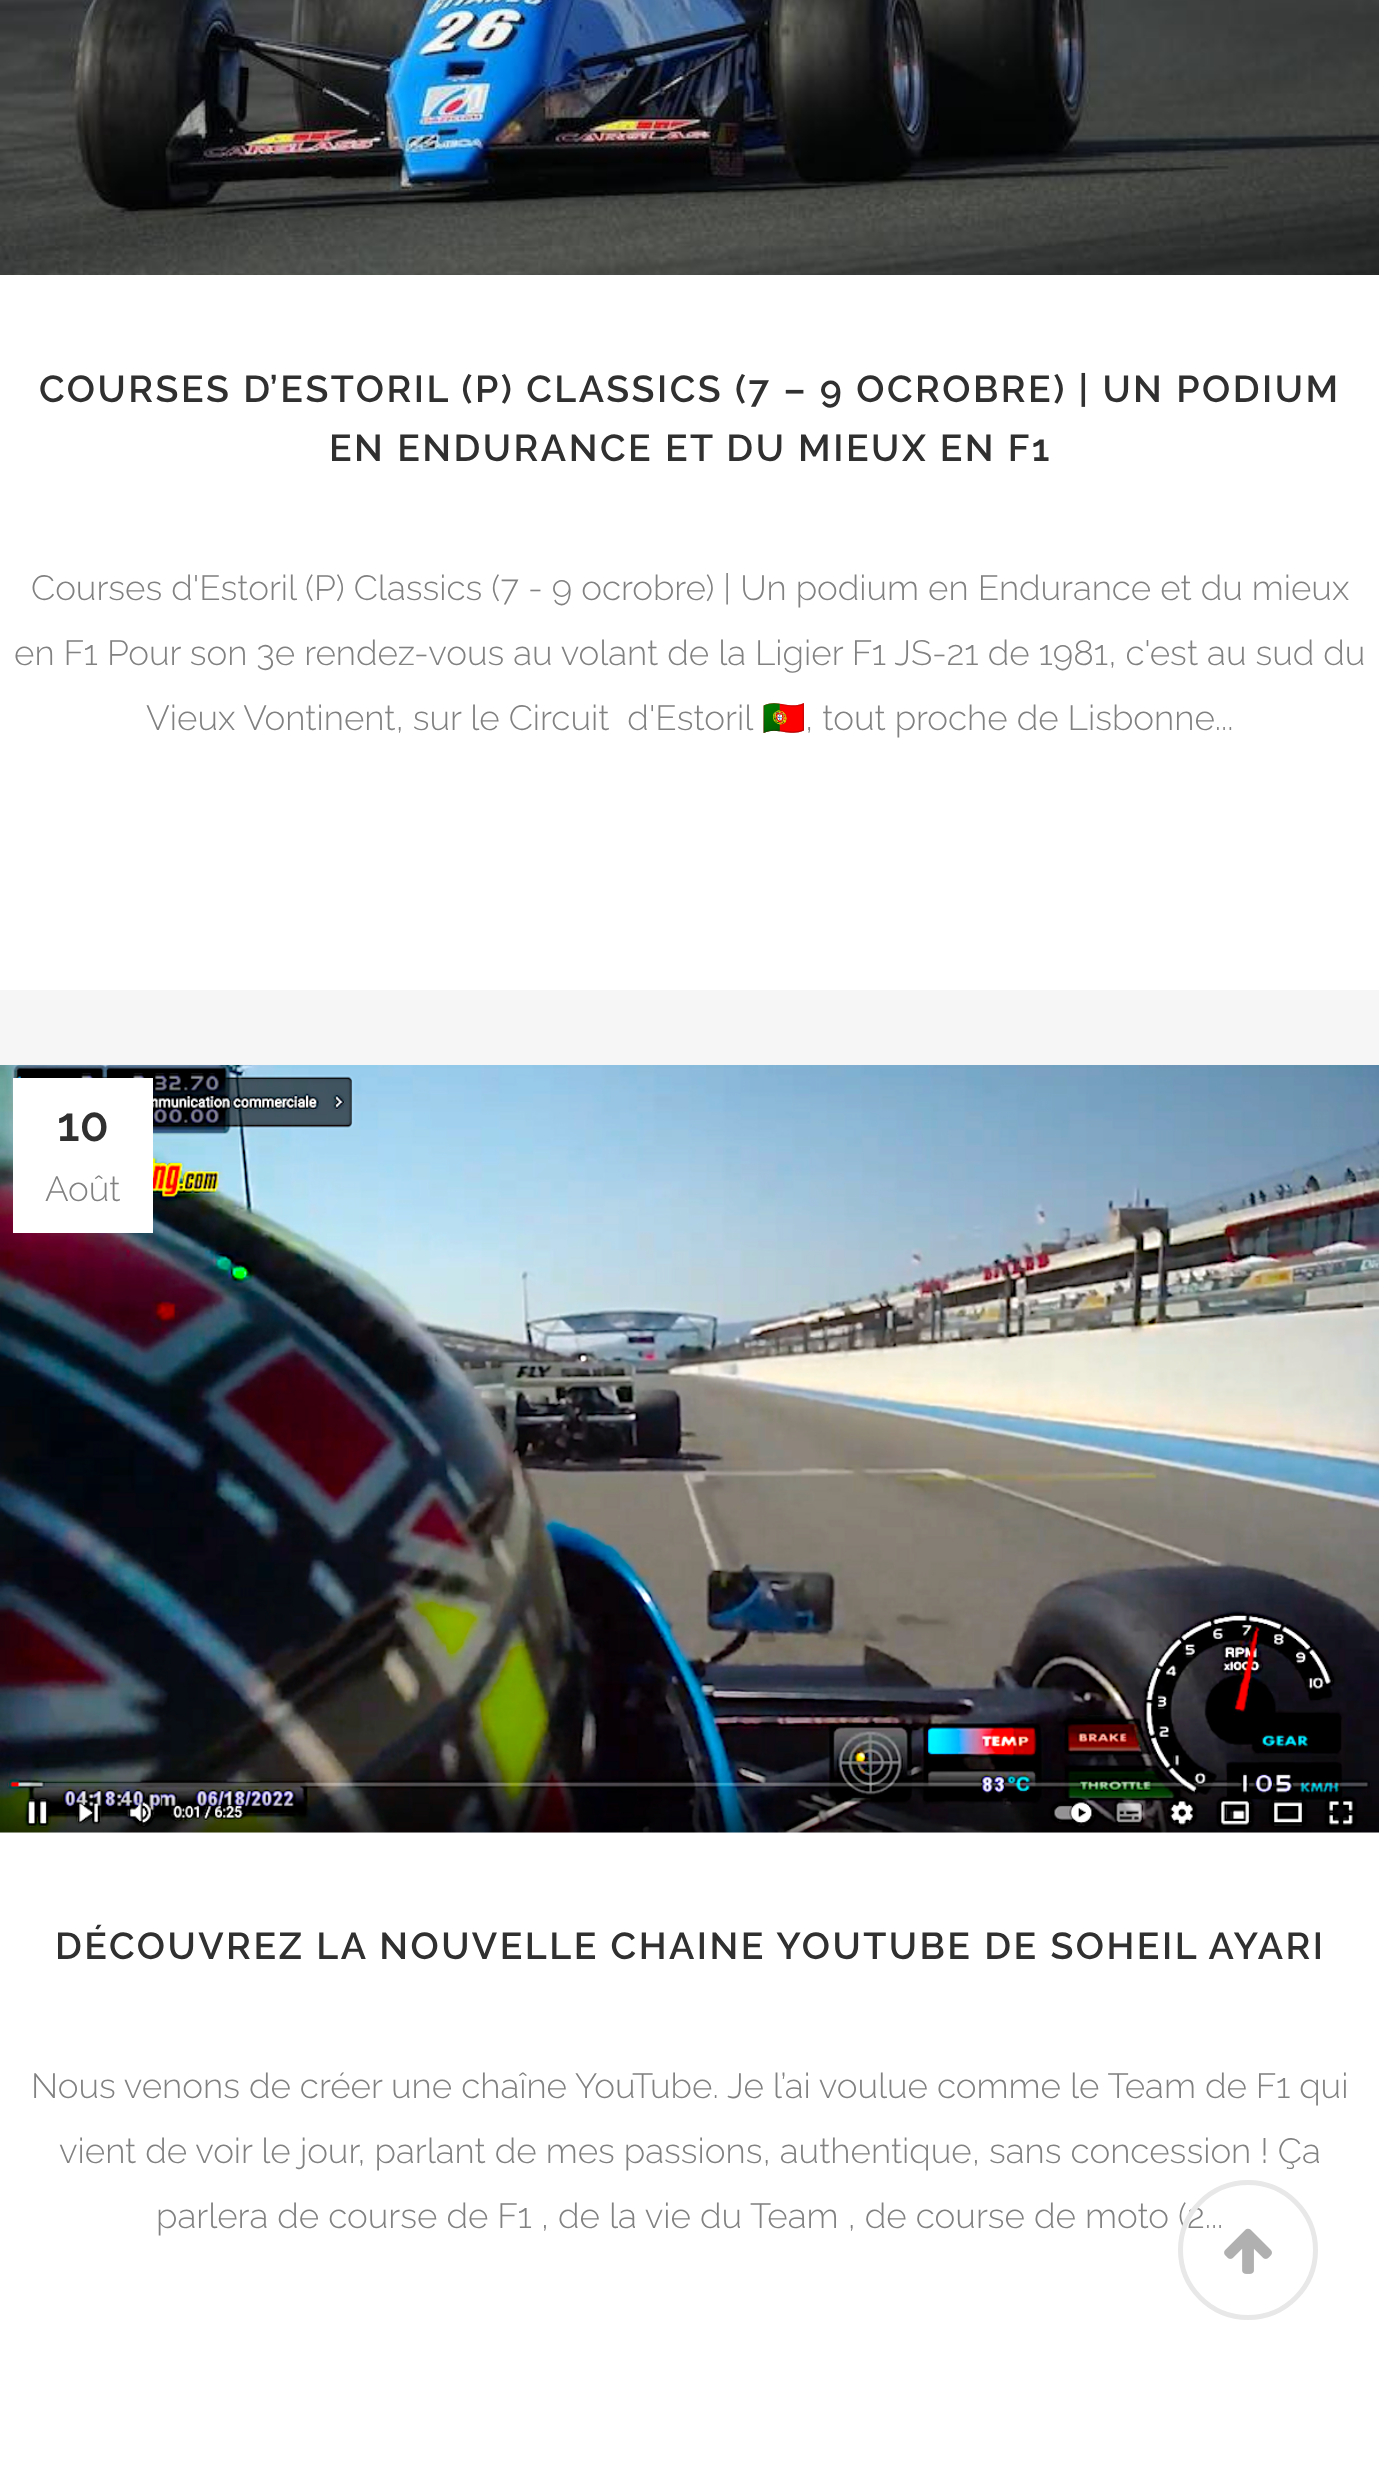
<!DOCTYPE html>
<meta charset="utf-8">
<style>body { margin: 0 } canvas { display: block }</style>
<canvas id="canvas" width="1379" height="2481"></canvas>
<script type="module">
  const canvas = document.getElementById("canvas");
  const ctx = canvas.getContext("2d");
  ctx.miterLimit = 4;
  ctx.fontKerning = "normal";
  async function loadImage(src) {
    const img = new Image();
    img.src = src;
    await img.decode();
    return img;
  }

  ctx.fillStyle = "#f6f6f6";
  ctx.fillRect(0, 0, 1379, 2481);
  ctx.drawImage(await loadImage("img1.png"), 0, 0, 1379, 275);
  ctx.fillStyle = "#ffffff";
  ctx.fillRect(0, 275, 1379, 715);
  ctx.letterSpacing = "2.5px";
  ctx.font = "600 37.5px Raleway";
  ctx.fillStyle = "#303030";
  ctx.fillText("COURSES D’ESTORIL (P) CLASSICS (7 – 9 OCROBRE) | UN PODIUM", 39, 402);
  ctx.fillText("EN ENDURANCE ET DU MIEUX EN F1", 329, 461);
  ctx.letterSpacing = "0px";
  ctx.font = "300 35px Raleway";
  ctx.fillStyle = "#818181";
  ctx.fillText("Courses d'Estoril (P) Classics (7 - 9 ocrobre) | Un podium en Endurance et du mieux", 31, 600);
  ctx.fillText("en F1 Pour son 3e rendez-vous au volant de la Ligier F1 JS-21 de 1981, c'est au sud du", 14, 665);
  ctx.fillText("Vieux Vontinent, sur le Circuit  d'Estoril", 146, 730);
  ctx.font = "35px Noto Color Emoji";
  ctx.fillText("🇵🇹", 762, 730);
  ctx.font = "300 35px Raleway";
  ctx.fillText(", tout proche de Lisbonne...", 805, 730);
  ctx.drawImage(await loadImage("img2.png"), 0, 1065, 1379, 768);
  ctx.fillStyle = "#ffffff";
  ctx.fillRect(13, 1078, 140, 155);
  ctx.font = "600 48px Raleway";
  ctx.fillStyle = "#303030";
  ctx.fillText("10", 57, 1141);
  ctx.font = "300 35px Raleway";
  ctx.fillStyle = "#818181";
  ctx.fillText("Août", 45, 1201);
  ctx.fillStyle = "#ffffff";
  ctx.fillRect(0, 1833, 1379, 648);
  ctx.letterSpacing = "2.5px";
  ctx.font = "600 37.5px Raleway";
  ctx.fillStyle = "#303030";
  ctx.fillText("DÉCOUVREZ LA NOUVELLE CHAINE YOUTUBE DE SOHEIL AYARI", 55, 1959);
  ctx.letterSpacing = "0px";
  ctx.font = "300 35px Raleway";
  ctx.fillStyle = "#818181";
  ctx.fillText("Nous venons de créer une chaîne YouTube.", 31, 2098);
  ctx.fillText("Je l’ai voulue comme le Team de F1 qui", 727, 2098);
  ctx.fillText("vient de voir le jour, parlant de mes passions, authentique, sans concession ! Ça", 59, 2163);
  ctx.fillText("parlera de course de F1 , de la vie du Team , de course de moto (2...", 156, 2228);
  ctx.beginPath();
  ctx.arc(1248, 2250, 67.5, 0, Math.PI * 2);
  ctx.strokeStyle = "#e8e8e8";
  ctx.lineWidth = 5;
  ctx.stroke();
  ctx.drawImage(await loadImage("img3.png"), 1224, 2228, 48, 46);
</script>
